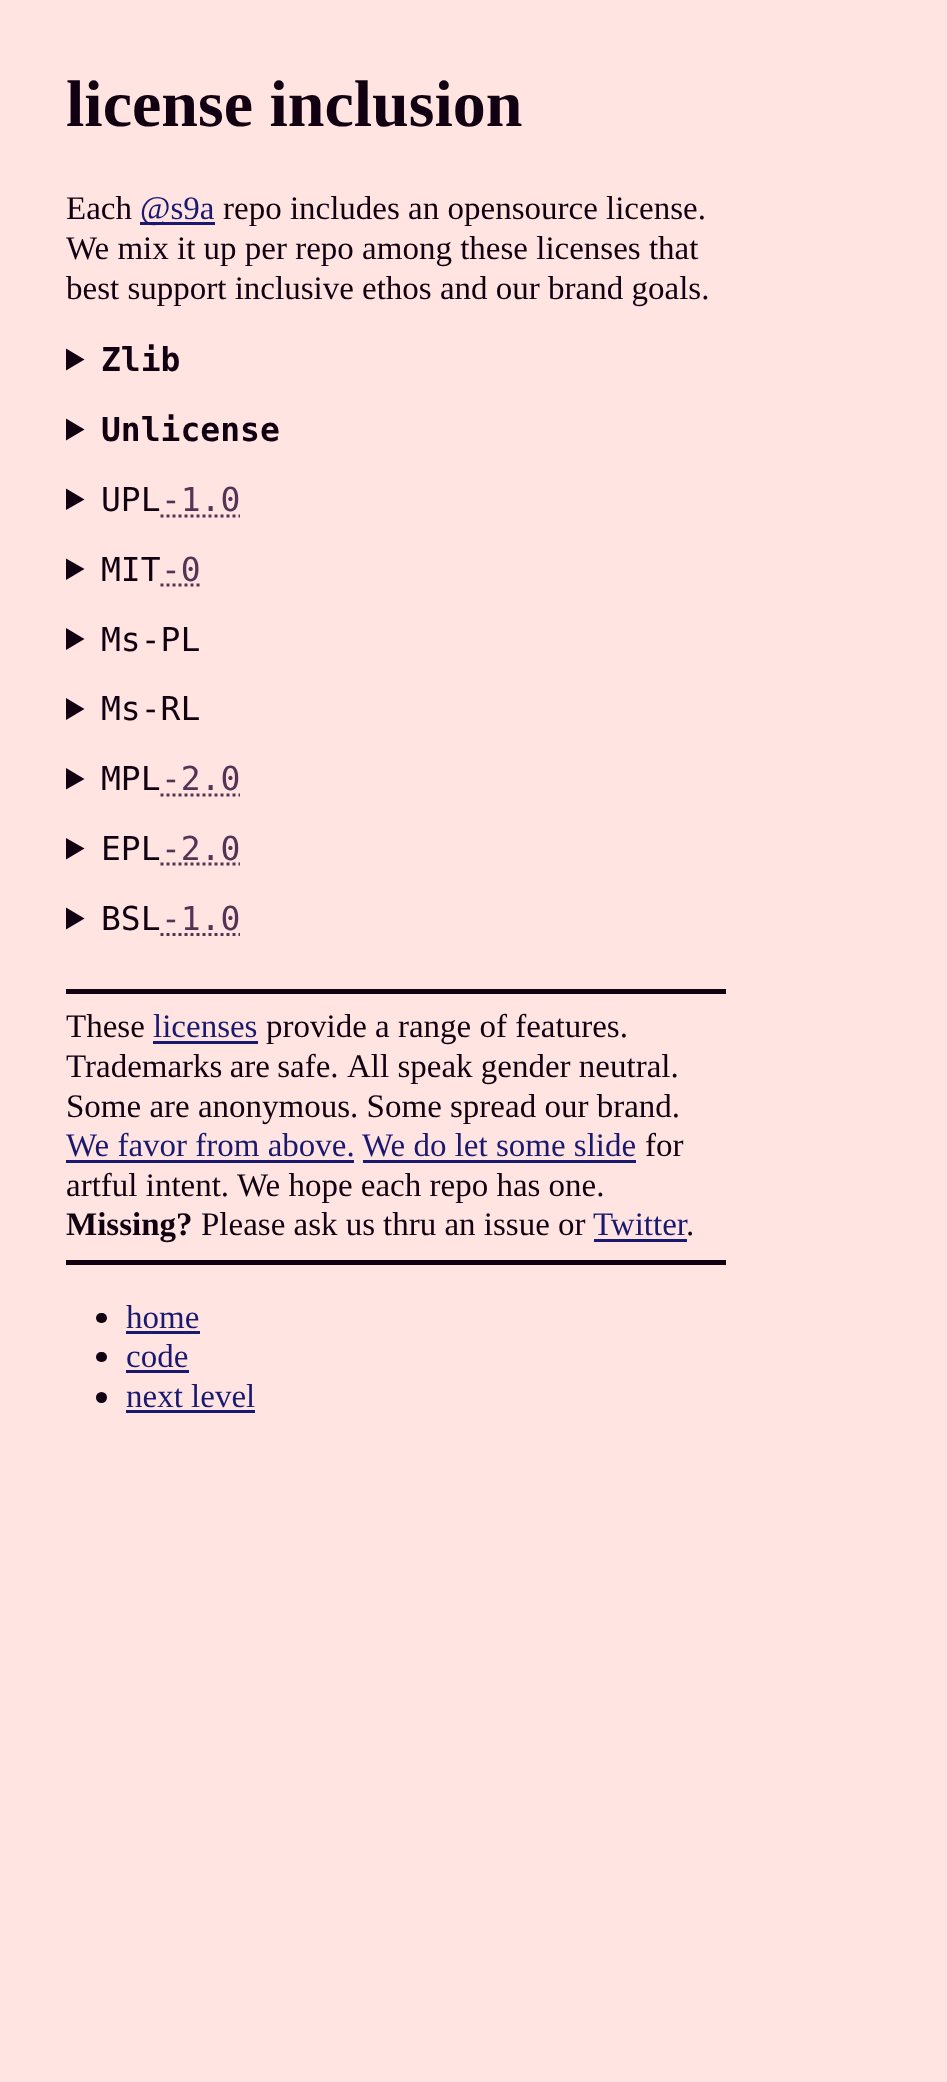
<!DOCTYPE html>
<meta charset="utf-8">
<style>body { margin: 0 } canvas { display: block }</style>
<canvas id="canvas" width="947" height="2082"></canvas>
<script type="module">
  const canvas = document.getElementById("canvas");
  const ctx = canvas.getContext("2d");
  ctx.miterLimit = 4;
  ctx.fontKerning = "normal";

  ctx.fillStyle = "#ffe4e1";
  ctx.fillRect(0, 0, 947, 2082);
  ctx.font = "bold 66px Liberation Serif";
  ctx.fillStyle = "#110011";
  ctx.fillText("license inclusion", 66, 126);
  ctx.font = "33px Liberation Serif";
  ctx.fillText("Each", 66, 219);
  ctx.fillStyle = "#191970";
  ctx.fillRect(140, 222, 75, 3);
  ctx.fillText("@s9a", 140, 219);
  ctx.fillStyle = "#110011";
  ctx.fillText("repo includes an opensource license.", 223, 219);
  ctx.fillText("We mix it up per repo among these licenses that", 66, 259);
  ctx.fillText("best support inclusive ethos and our brand goals.", 66, 299);
  ctx.beginPath();
  ctx.moveTo(66, 348.5);
  ctx.lineTo(84.5, 359.5);
  ctx.lineTo(66, 370.5);
  ctx.closePath();
  ctx.fill();
  ctx.font = "bold 33px DejaVu Sans Mono";
  ctx.fillText("Zlib", 101, 371);
  ctx.beginPath();
  ctx.moveTo(66, 418.5);
  ctx.lineTo(84.5, 429.5);
  ctx.lineTo(66, 440.5);
  ctx.closePath();
  ctx.fill();
  ctx.fillText("Unlicense", 101, 441);
  ctx.beginPath();
  ctx.moveTo(66, 488.5);
  ctx.lineTo(84.5, 499.5);
  ctx.lineTo(66, 510);
  ctx.closePath();
  ctx.fill();
  ctx.font = "33px DejaVu Sans Mono";
  ctx.fillText("UPL", 101, 511);
  ctx.beginPath();
  ctx.moveTo(160.5, 516);
  ctx.lineTo(240, 516);
  ctx.strokeStyle = "#553355";
  ctx.lineWidth = 3;
  ctx.setLineDash([3, 3]);
  ctx.stroke();
  ctx.fillStyle = "#553355";
  ctx.fillText("-1.0", 161, 511);
  ctx.fillStyle = "#110011";
  ctx.beginPath();
  ctx.moveTo(66, 558.5);
  ctx.lineTo(84.5, 569);
  ctx.lineTo(66, 580);
  ctx.closePath();
  ctx.fill();
  ctx.fillText("MIT", 101, 581);
  ctx.fillStyle = "#553355";
  ctx.fillText("-0", 161, 581);
  ctx.beginPath();
  ctx.moveTo(160.5, 585);
  ctx.lineTo(200.5, 585);
  ctx.stroke();
  ctx.fillStyle = "#110011";
  ctx.beginPath();
  ctx.moveTo(66, 628);
  ctx.lineTo(84.5, 639);
  ctx.lineTo(66, 650);
  ctx.closePath();
  ctx.fill();
  ctx.fillText("Ms-PL", 101, 651);
  ctx.beginPath();
  ctx.moveTo(66, 698);
  ctx.lineTo(84.5, 709);
  ctx.lineTo(66, 720);
  ctx.closePath();
  ctx.fill();
  ctx.fillText("Ms-RL", 101, 720);
  ctx.beginPath();
  ctx.moveTo(66, 768);
  ctx.lineTo(84.5, 779);
  ctx.lineTo(66, 789.5);
  ctx.closePath();
  ctx.fill();
  ctx.fillText("MPL", 101, 790);
  ctx.fillStyle = "#553355";
  ctx.fillText("-2.0", 161, 790);
  ctx.beginPath();
  ctx.moveTo(160.5, 795);
  ctx.lineTo(240, 795);
  ctx.stroke();
  ctx.fillStyle = "#110011";
  ctx.beginPath();
  ctx.moveTo(66, 838);
  ctx.lineTo(84.5, 848.5);
  ctx.lineTo(66, 859.5);
  ctx.closePath();
  ctx.fill();
  ctx.fillText("EPL", 101, 860);
  ctx.fillStyle = "#553355";
  ctx.fillText("-2.0", 161, 860);
  ctx.beginPath();
  ctx.moveTo(160.5, 864);
  ctx.lineTo(240, 864);
  ctx.stroke();
  ctx.fillStyle = "#110011";
  ctx.beginPath();
  ctx.moveTo(66, 907.5);
  ctx.lineTo(84.5, 918.5);
  ctx.lineTo(66, 929.5);
  ctx.closePath();
  ctx.fill();
  ctx.fillText("BSL", 101, 930);
  ctx.beginPath();
  ctx.moveTo(160.5, 934.5);
  ctx.lineTo(240, 934.5);
  ctx.stroke();
  ctx.fillStyle = "#553355";
  ctx.fillText("-1.0", 161, 930);
  ctx.fillStyle = "#110011";
  ctx.fillRect(66, 989, 660, 5);
  ctx.fillRect(66, 1260, 660, 5);
  ctx.font = "33px Liberation Serif";
  ctx.fillText("These", 66, 1037);
  ctx.fillStyle = "#191970";
  ctx.fillText("licenses", 153, 1037);
  ctx.fillRect(153, 1041, 105, 3);
  ctx.fillStyle = "#110011";
  ctx.fillText("provide a range of features.", 266, 1037);
  ctx.wordSpacing = "-1px";
  ctx.fillText("Trademarks are safe.", 66, 1077);
  ctx.wordSpacing = "0px";
  ctx.fillText("All speak gender neutral.", 347, 1077);
  ctx.fillText("Some are anonymous. Some spread our brand.", 66, 1117);
  ctx.fillStyle = "#191970";
  ctx.fillText("We favor from above.", 66, 1156);
  ctx.fillRect(66, 1160, 288, 3);
  ctx.fillText("We do let some slide", 362, 1156);
  ctx.fillRect(363, 1160, 273, 3);
  ctx.fillStyle = "#110011";
  ctx.fillText("for", 645, 1156);
  ctx.fillText("artful intent.", 66, 1196);
  ctx.fillText("We hope each repo has one.", 237, 1196);
  ctx.font = "bold 33px Liberation Serif";
  ctx.fillText("Missing?", 66, 1235);
  ctx.font = "33px Liberation Serif";
  ctx.fillText("Please ask us", 201, 1235);
  ctx.fillText("thru an issue or", 383, 1235);
  ctx.fillStyle = "#191970";
  ctx.fillText("Twitter", 593, 1235);
  ctx.fillRect(594, 1239, 93, 3);
  ctx.fillStyle = "#110011";
  ctx.fillText(".", 686, 1235);
  ctx.beginPath();
  ctx.roundRect(96, 1313, 11, 10, 5);
  ctx.fill();
  ctx.fillStyle = "#191970";
  ctx.fillText("home", 126, 1328);
  ctx.fillRect(126, 1331, 74, 3);
  ctx.fillStyle = "#110011";
  ctx.beginPath();
  ctx.roundRect(96, 1352, 11, 10, 5);
  ctx.fill();
  ctx.fillStyle = "#191970";
  ctx.fillText("code", 126, 1367);
  ctx.fillRect(126, 1370, 63, 3);
  ctx.fillStyle = "#110011";
  ctx.beginPath();
  ctx.arc(101.5, 1397.5, 5.5, 0, Math.PI * 2);
  ctx.fill();
  ctx.fillStyle = "#191970";
  ctx.fillText("next level", 126, 1407);
  ctx.fillRect(126, 1410, 129, 3);
</script>
